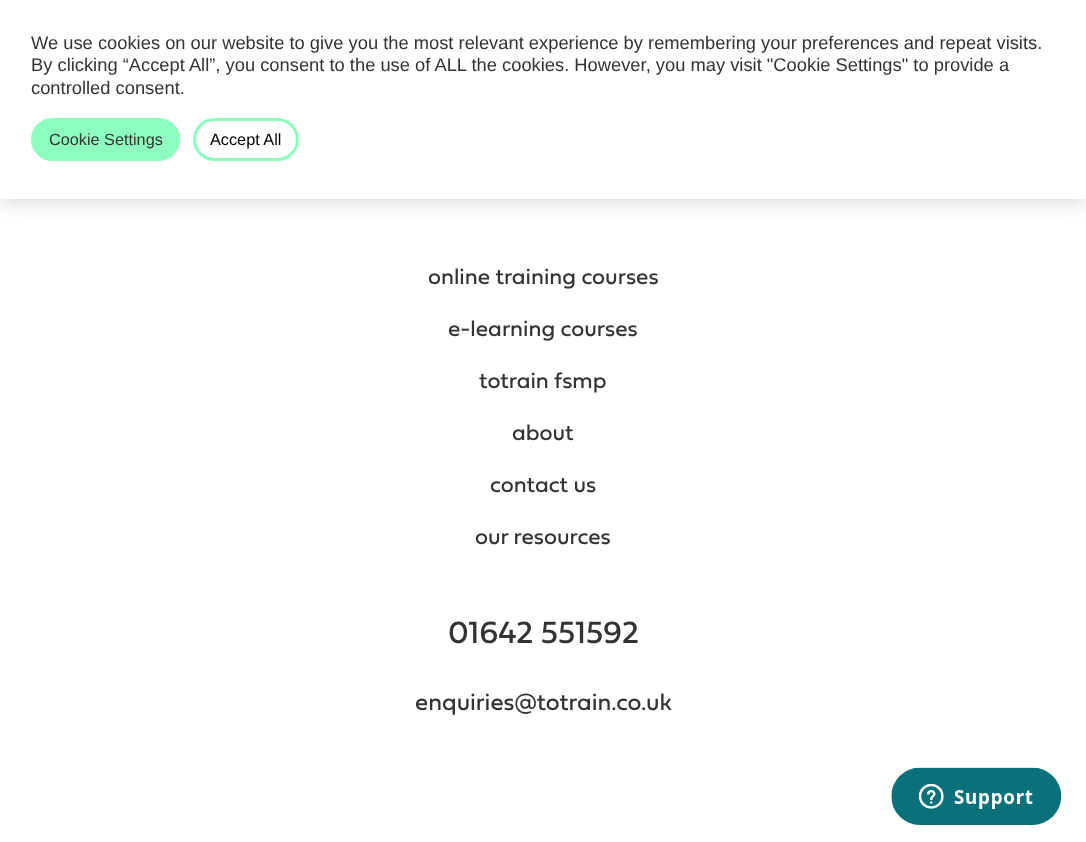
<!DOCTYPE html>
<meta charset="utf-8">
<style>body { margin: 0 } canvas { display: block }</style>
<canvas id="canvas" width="1086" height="842"></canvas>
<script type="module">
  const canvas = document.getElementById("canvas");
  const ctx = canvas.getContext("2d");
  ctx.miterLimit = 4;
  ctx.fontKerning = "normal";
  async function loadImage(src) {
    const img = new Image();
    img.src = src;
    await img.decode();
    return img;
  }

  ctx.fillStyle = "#ffffff";
  ctx.fillRect(0, 0, 1086, 842);
  ctx.fillStyle = "rgba(0, 0, 0, 0.2)";
  ctx.filter = "blur(11px)";
  ctx.beginPath();
  ctx.rect(0, 0, 1086, 199);
  ctx.fill();
  ctx.filter = "none";
  ctx.fillStyle = "#ffffff";
  ctx.fillRect(0, 0, 1086, 199);
  ctx.font = "18.33px Liberation Sans";
  ctx.fillStyle = "#333333";
  ctx.fillText("We use cookies on our website to give you the most relevant experience by remembering your preferences and repeat visits.", 31, 49);
  ctx.fillText("By clicking “Accept All”, you consent to the use of ALL the cookies. However, you may visit \"Cookie Settings\" to provide a", 31, 71);
  ctx.fillText("controlled consent.", 31, 94);
  ctx.fillStyle = "#8cffbe";
  ctx.beginPath();
  ctx.roundRect(32.5, 119.5, 146, 40, 20);
  ctx.fill();
  ctx.strokeStyle = "#8cffbe";
  ctx.lineWidth = 3;
  ctx.stroke();
  ctx.font = "16.25px Liberation Sans";
  ctx.fillStyle = "#333333";
  ctx.fillText("Cookie Settings", 49, 145);
  ctx.beginPath();
  ctx.roundRect(194.5, 119.5, 103, 40, 20);
  ctx.stroke();
  ctx.fillStyle = "#000000";
  ctx.fillText("Accept All", 210, 145);
  ctx.font = "22.5px 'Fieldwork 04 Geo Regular'";
  ctx.fillStyle = "#333333";
  ctx.fillText("online training courses", 428, 284);
  ctx.fillText("e-learning courses", 448, 336);
  ctx.fillText("totrain fsmp", 479, 388);
  ctx.fillText("about", 512, 440);
  ctx.fillText("contact us", 490, 492);
  ctx.fillText("our resources", 475, 544);
  ctx.font = "32px 'Fieldwork 04 Geo Regular'";
  ctx.fillText("01642 551592", 448, 643);
  ctx.font = "24px 'Fieldwork 04 Geo Regular'";
  ctx.fillText("enquiries@totrain.co.uk", 415, 710);
  ctx.drawImage(await loadImage("img1.png"), 891, 767, 170, 58);
</script>
